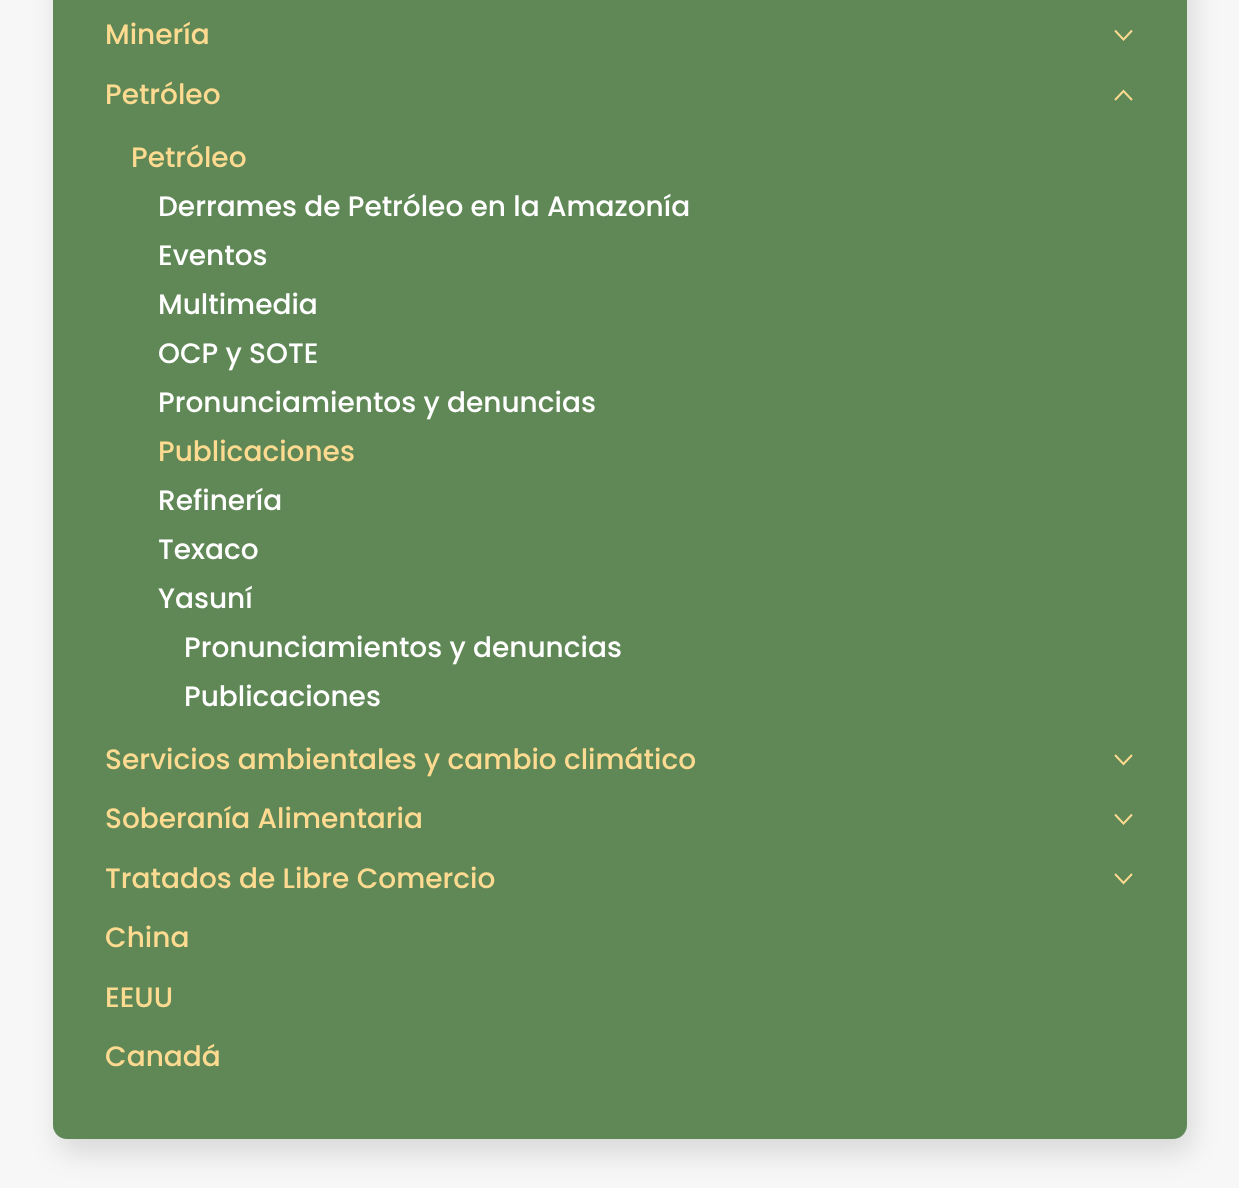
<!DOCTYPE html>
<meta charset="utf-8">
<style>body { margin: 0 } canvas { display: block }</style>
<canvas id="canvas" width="1239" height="1188"></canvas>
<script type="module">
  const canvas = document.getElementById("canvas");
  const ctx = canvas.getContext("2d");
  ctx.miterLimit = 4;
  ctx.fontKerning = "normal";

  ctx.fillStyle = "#f7f7f7";
  ctx.fillRect(0, 0, 1239, 1188);
  ctx.fillStyle = "rgba(0, 0, 0, 0.12)";
  ctx.filter = "blur(14px)";
  ctx.beginPath();
  ctx.roundRect(58, -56, 1134, 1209, 14);
  ctx.fill();
  ctx.filter = "none";
  ctx.fillStyle = "#608856";
  ctx.beginPath();
  ctx.roundRect(53, -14, 1134, 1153, 14);
  ctx.fill();
  ctx.font = "500 28px Poppins";
  ctx.fillStyle = "#ffdb91";
  ctx.fillText("Minería", 105, 44);
  ctx.beginPath();
  ctx.moveTo(1115, 30.5);
  ctx.lineTo(1123.5, 39.5);
  ctx.lineTo(1132, 30.5);
  ctx.strokeStyle = "#ffdb91";
  ctx.lineWidth = 1.9;
  ctx.stroke();
  ctx.fillText("Petróleo", 105, 104);
  ctx.beginPath();
  ctx.moveTo(1115, 100);
  ctx.lineTo(1123.5, 91);
  ctx.lineTo(1132, 100);
  ctx.stroke();
  ctx.fillText("Petróleo", 131, 167);
  ctx.fillStyle = "#ffffff";
  ctx.fillText("Derrames de Petróleo en la Amazonía", 158, 216);
  ctx.fillText("Eventos", 158, 265);
  ctx.fillText("Multimedia", 158, 314);
  ctx.fillText("OCP y SOTE", 158, 363);
  ctx.fillText("Pronunciamientos y denuncias", 158, 412);
  ctx.fillStyle = "#ffdb91";
  ctx.fillText("Publicaciones", 158, 461);
  ctx.fillStyle = "#ffffff";
  ctx.fillText("Refinería", 158, 510);
  ctx.fillText("Texaco", 158, 559);
  ctx.fillText("Yasuní", 158, 608);
  ctx.fillText("Pronunciamientos y denuncias", 184, 657);
  ctx.fillText("Publicaciones", 184, 706);
  ctx.fillStyle = "#ffdb91";
  ctx.fillText("Servicios ambientales y cambio climático", 105, 769);
  ctx.beginPath();
  ctx.moveTo(1115, 755);
  ctx.lineTo(1123.5, 764);
  ctx.lineTo(1132, 755);
  ctx.stroke();
  ctx.fillText("Soberanía Alimentaria", 105, 828);
  ctx.beginPath();
  ctx.moveTo(1115, 814.5);
  ctx.lineTo(1123.5, 823.5);
  ctx.lineTo(1132, 814.5);
  ctx.stroke();
  ctx.fillText("Tratados de Libre Comercio", 105, 888);
  ctx.beginPath();
  ctx.moveTo(1115, 874);
  ctx.lineTo(1123.5, 883);
  ctx.lineTo(1132, 874);
  ctx.stroke();
  ctx.fillText("China", 105, 947);
  ctx.fillText("EEUU", 105, 1007);
  ctx.fillText("Canadá", 105, 1066);
</script>
